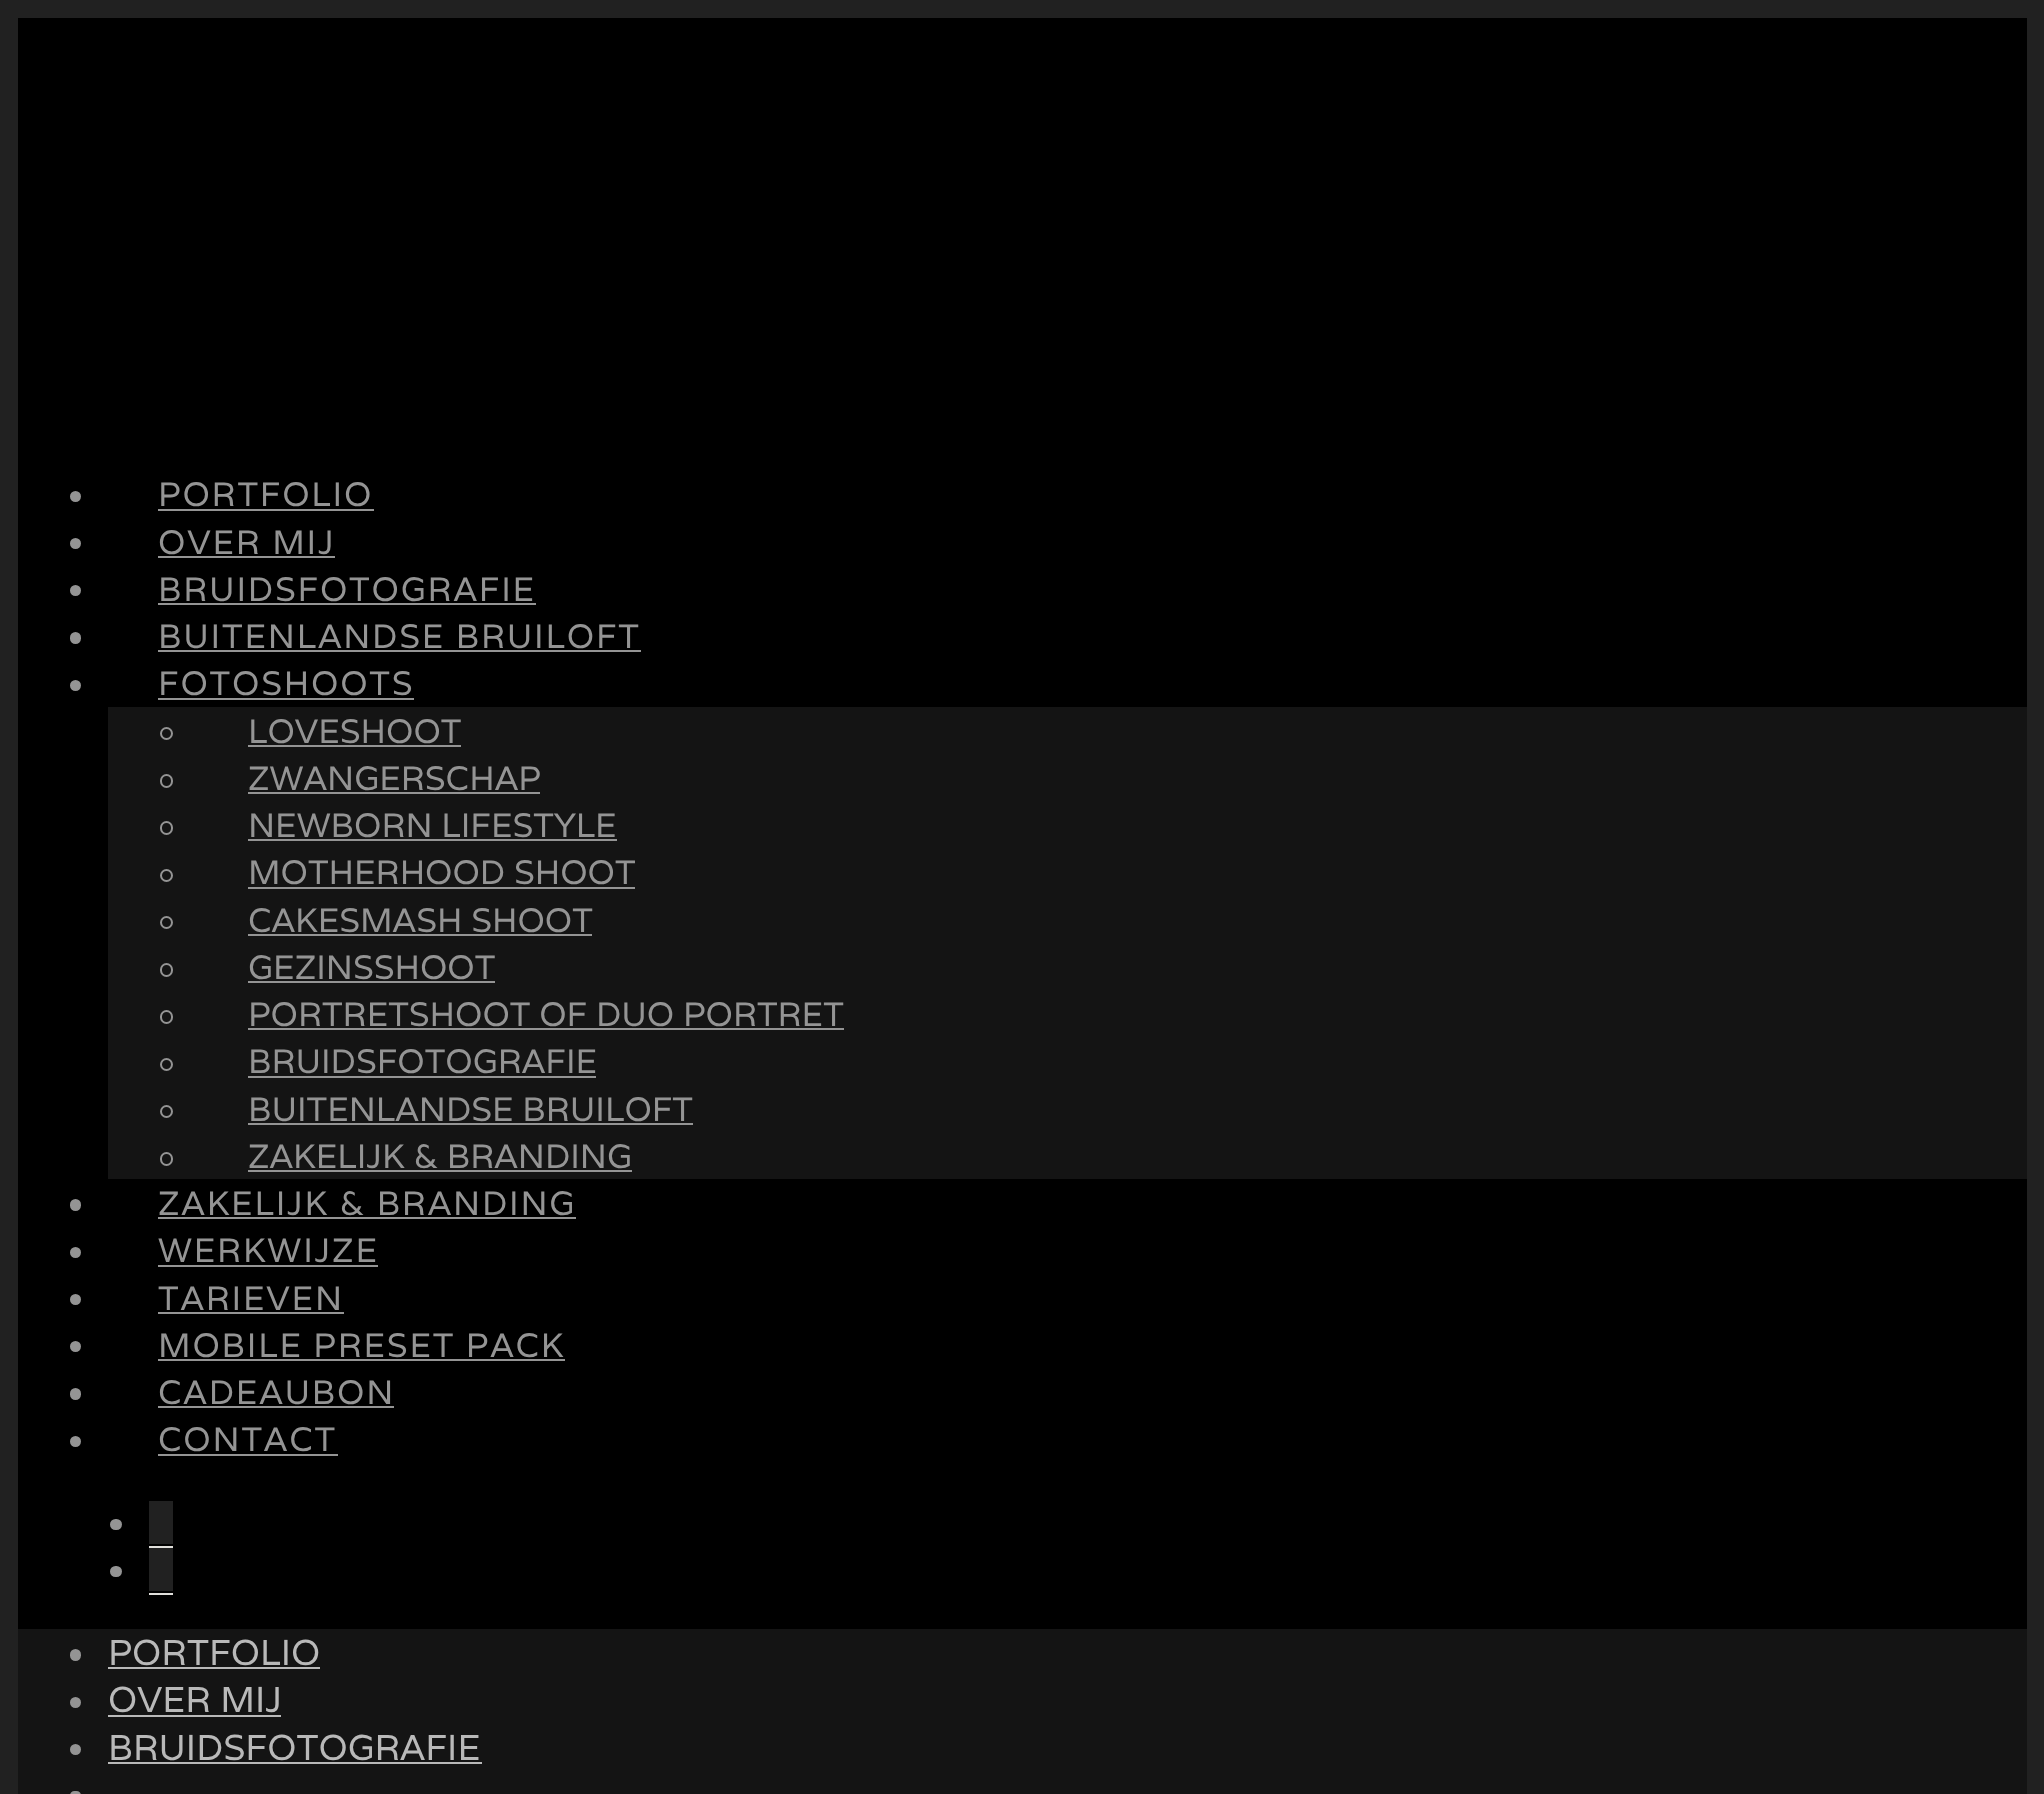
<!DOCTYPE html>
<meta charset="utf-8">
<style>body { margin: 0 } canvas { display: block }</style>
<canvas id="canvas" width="2044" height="1794"></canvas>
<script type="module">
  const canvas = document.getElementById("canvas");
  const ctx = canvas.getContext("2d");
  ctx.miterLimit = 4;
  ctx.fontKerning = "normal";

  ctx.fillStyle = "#212121";
  ctx.fillRect(0, 0, 2044, 1794);
  ctx.fillStyle = "#000000";
  ctx.fillRect(18, 18, 2009, 1611);
  ctx.fillStyle = "#949494";
  ctx.beginPath();
  ctx.arc(75.5, 496.5, 5.5, 0, Math.PI * 2);
  ctx.fill();
  ctx.letterSpacing = "1.8px";
  ctx.font = "33.75px Varela";
  ctx.fillText("PORTFOLIO", 158, 506);
  ctx.fillRect(158, 509, 216, 2);
  ctx.beginPath();
  ctx.arc(75.5, 543.5, 5.5, 0, Math.PI * 2);
  ctx.fill();
  ctx.fillText("OVER MIJ", 158, 554);
  ctx.fillRect(158, 556, 177, 2);
  ctx.beginPath();
  ctx.arc(75.5, 590.5, 5.5, 0, Math.PI * 2);
  ctx.fill();
  ctx.fillText("BRUIDSFOTOGRAFIE", 158, 601);
  ctx.fillRect(158, 603, 378, 2);
  ctx.beginPath();
  ctx.roundRect(70, 632, 11, 12, 5.5);
  ctx.fill();
  ctx.fillText("BUITENLANDSE BRUILOFT", 158, 648);
  ctx.fillRect(158, 650, 483, 2);
  ctx.beginPath();
  ctx.arc(75.5, 685.5, 5.5, 0, Math.PI * 2);
  ctx.fill();
  ctx.fillText("FOTOSHOOTS", 158, 695);
  ctx.fillRect(158, 698, 256, 2);
  ctx.fillStyle = "#141414";
  ctx.fillRect(108, 707, 1919, 472);
  ctx.beginPath();
  ctx.arc(166.5, 733.5, 5.5, 0, Math.PI * 2);
  ctx.strokeStyle = "#949494";
  ctx.lineWidth = 2;
  ctx.stroke();
  ctx.letterSpacing = "0px";
  ctx.fillStyle = "#949494";
  ctx.fillText("LOVESHOOT", 248, 743);
  ctx.fillRect(248, 745, 213, 2);
  ctx.beginPath();
  ctx.roundRect(161, 775, 11, 12, 5.5);
  ctx.stroke();
  ctx.fillText("ZWANGERSCHAP", 248, 790);
  ctx.fillRect(248, 792, 292, 2);
  ctx.beginPath();
  ctx.roundRect(161, 822, 11, 12, 5.5);
  ctx.stroke();
  ctx.fillText("NEWBORN LIFESTYLE", 248, 837);
  ctx.fillRect(248, 839, 369, 2);
  ctx.beginPath();
  ctx.arc(166.5, 875.5, 5.5, 0, Math.PI * 2);
  ctx.stroke();
  ctx.fillText("MOTHERHOOD SHOOT", 248, 884);
  ctx.fillRect(248, 887, 387, 2);
  ctx.beginPath();
  ctx.arc(166.5, 922.5, 5.5, 0, Math.PI * 2);
  ctx.stroke();
  ctx.fillText("CAKESMASH SHOOT", 248, 932);
  ctx.fillRect(248, 934, 344, 2);
  ctx.beginPath();
  ctx.roundRect(161, 964, 11, 12, 5.5);
  ctx.stroke();
  ctx.fillText("GEZINSSHOOT", 248, 979);
  ctx.fillRect(248, 981, 247, 2);
  ctx.beginPath();
  ctx.roundRect(161, 1011, 11, 12, 5.5);
  ctx.stroke();
  ctx.fillText("PORTRETSHOOT OF DUO PORTRET", 248, 1026);
  ctx.fillRect(248, 1028, 596, 2);
  ctx.beginPath();
  ctx.arc(166.5, 1064.5, 5.5, 0, Math.PI * 2);
  ctx.stroke();
  ctx.fillText("BRUIDSFOTOGRAFIE", 248, 1073);
  ctx.fillRect(248, 1076, 348, 2);
  ctx.beginPath();
  ctx.arc(166.5, 1111.5, 5.5, 0, Math.PI * 2);
  ctx.stroke();
  ctx.fillText("BUITENLANDSE BRUILOFT", 248, 1121);
  ctx.fillRect(248, 1123, 445, 2);
  ctx.beginPath();
  ctx.roundRect(161, 1153, 11, 12, 5.5);
  ctx.stroke();
  ctx.fillText("ZAKELIJK & BRANDING", 248, 1168);
  ctx.fillRect(248, 1170, 384, 2);
  ctx.beginPath();
  ctx.roundRect(70, 1199, 11, 12, 5.5);
  ctx.fill();
  ctx.letterSpacing = "1.8px";
  ctx.fillText("ZAKELIJK & BRANDING", 158, 1215);
  ctx.fillRect(158, 1217, 418, 2);
  ctx.beginPath();
  ctx.arc(75.5, 1252.5, 5.5, 0, Math.PI * 2);
  ctx.fill();
  ctx.fillText("WERKWIJZE", 158, 1262);
  ctx.fillRect(158, 1265, 220, 2);
  ctx.beginPath();
  ctx.arc(75.5, 1299.5, 5.5, 0, Math.PI * 2);
  ctx.fill();
  ctx.fillText("TARIEVEN", 158, 1310);
  ctx.fillRect(158, 1312, 186, 2);
  ctx.beginPath();
  ctx.arc(75.5, 1346.5, 5.5, 0, Math.PI * 2);
  ctx.fill();
  ctx.fillText("MOBILE PRESET PACK", 158, 1357);
  ctx.fillRect(158, 1359, 407, 2);
  ctx.beginPath();
  ctx.roundRect(70, 1388, 11, 12, 5.5);
  ctx.fill();
  ctx.fillText("CADEAUBON", 158, 1404);
  ctx.fillRect(158, 1406, 236, 2);
  ctx.beginPath();
  ctx.arc(75.5, 1441.5, 5.5, 0, Math.PI * 2);
  ctx.fill();
  ctx.fillText("CONTACT", 158, 1451);
  ctx.fillRect(158, 1454, 180, 2);
  ctx.beginPath();
  ctx.roundRect(110, 1519, 12, 11, 5.5);
  ctx.fill();
  ctx.fillStyle = "#212121";
  ctx.fillRect(149, 1501, 24, 43);
  ctx.fillStyle = "#e0dfdb";
  ctx.fillRect(149, 1546, 24, 2);
  ctx.fillStyle = "#949494";
  ctx.beginPath();
  ctx.roundRect(110, 1566, 12, 11, 5.5);
  ctx.fill();
  ctx.fillStyle = "#212121";
  ctx.fillRect(149, 1548, 24, 43);
  ctx.fillStyle = "#e0dfdb";
  ctx.fillRect(149, 1593, 24, 2);
  ctx.fillStyle = "#141414";
  ctx.fillRect(18, 1629, 2009, 165);
  ctx.fillStyle = "#949494";
  ctx.beginPath();
  ctx.roundRect(70, 1649, 11, 12, 5.5);
  ctx.fill();
  ctx.letterSpacing = "0px";
  ctx.font = "36px Varela";
  ctx.fillStyle = "#b9b9b9";
  ctx.fillText("PORTFOLIO", 108, 1665);
  ctx.fillRect(108, 1667, 212, 2);
  ctx.fillStyle = "#949494";
  ctx.beginPath();
  ctx.arc(75.5, 1702.5, 5.5, 0, Math.PI * 2);
  ctx.fill();
  ctx.fillStyle = "#b9b9b9";
  ctx.fillText("OVER MIJ", 108, 1712);
  ctx.fillRect(108, 1715, 173, 2);
  ctx.fillStyle = "#949494";
  ctx.beginPath();
  ctx.arc(75.5, 1749.5, 5.5, 0, Math.PI * 2);
  ctx.fill();
  ctx.fillStyle = "#b9b9b9";
  ctx.fillText("BRUIDSFOTOGRAFIE", 108, 1760);
  ctx.fillRect(108, 1762, 374, 2);
  ctx.fillStyle = "#949494";
  ctx.beginPath();
  ctx.roundRect(70, 1791, 11, 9, 5.5);
  ctx.fill();
</script>
